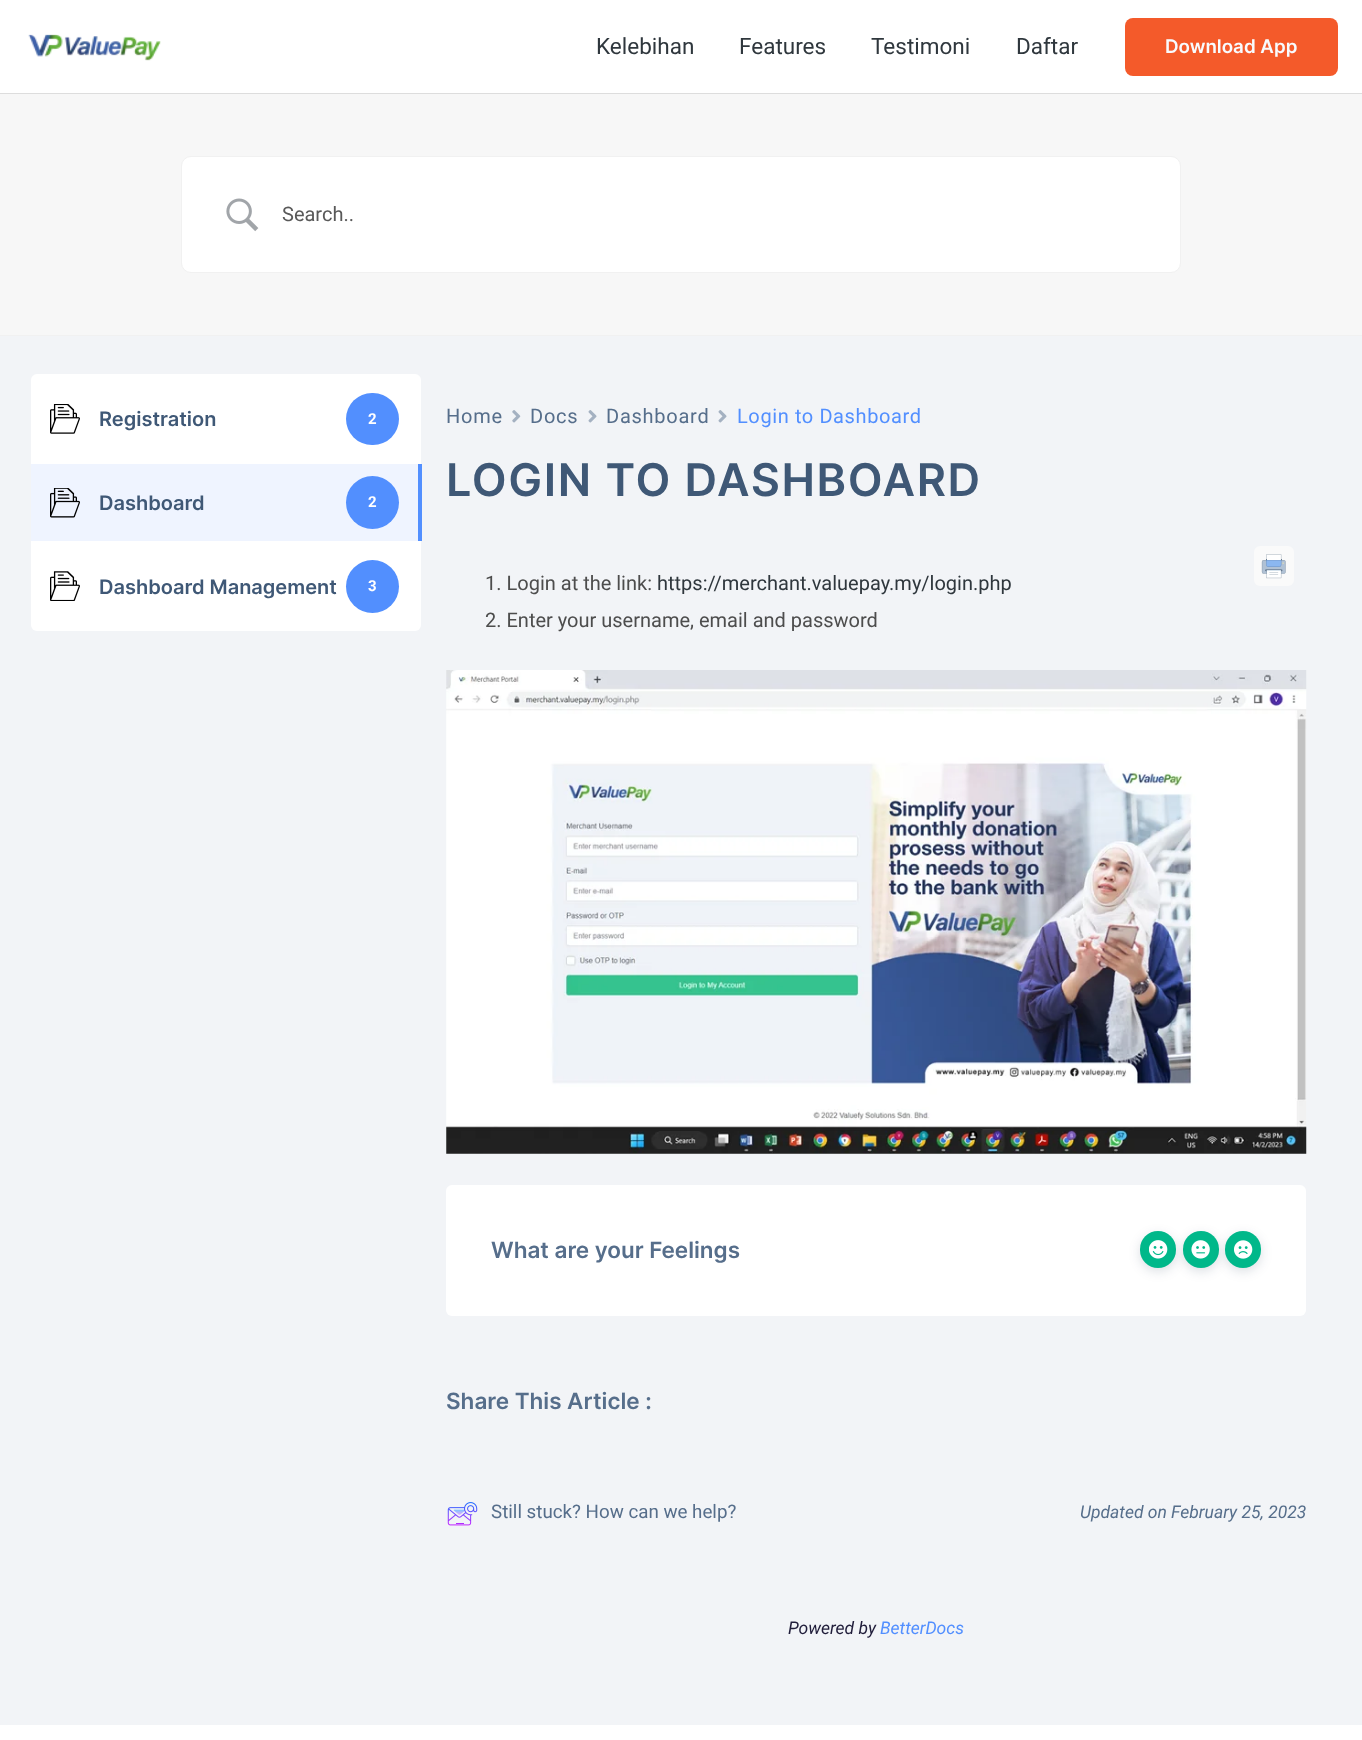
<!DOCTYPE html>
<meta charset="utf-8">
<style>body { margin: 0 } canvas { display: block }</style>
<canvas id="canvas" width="1362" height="1740"></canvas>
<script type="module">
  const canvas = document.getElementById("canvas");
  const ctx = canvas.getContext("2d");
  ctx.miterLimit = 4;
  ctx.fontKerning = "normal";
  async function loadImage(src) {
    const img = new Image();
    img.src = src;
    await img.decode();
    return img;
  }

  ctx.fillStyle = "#f2f4f7";
  ctx.fillRect(0, 0, 1362, 1740);
  ctx.fillStyle = "#ffffff";
  ctx.fillRect(0, 0, 1362, 93);
  ctx.fillStyle = "#dddddd";
  ctx.fillRect(0, 93, 1362, 1);
  ctx.drawImage(await loadImage("img1.png"), 28, 34, 133, 27);
  ctx.font = "22.5px Roboto";
  ctx.fillStyle = "#2f373d";
  ctx.fillText("Kelebihan", 596, 54);
  ctx.fillText("Features", 739, 54);
  ctx.fillText("Testimoni", 871, 54);
  ctx.fillText("Daftar", 1016, 54);
  ctx.fillStyle = "#f45a2a";
  ctx.beginPath();
  ctx.roundRect(1125, 18, 213, 58, 8);
  ctx.fill();
  ctx.font = "600 18.75px Inter";
  ctx.fillStyle = "#f8fbfe";
  ctx.fillText("Download App", 1165, 53);
  ctx.fillStyle = "#f7f7f7";
  ctx.fillRect(0, 94, 1362, 241);
  ctx.fillStyle = "#f1f1f1";
  ctx.fillRect(0, 335, 1362, 1);
  ctx.fillStyle = "#ffffff";
  ctx.beginPath();
  ctx.roundRect(181.5, 156.5, 999, 116, 9.5);
  ctx.fill();
  ctx.strokeStyle = "#f1f1f1";
  ctx.stroke();
  ctx.drawImage(await loadImage("img2.png"), 226, 198, 33, 34);
  ctx.font = "20px Roboto";
  ctx.fillStyle = "#595959";
  ctx.fillText("Search..", 282, 221);
  ctx.fillStyle = "#ffffff";
  ctx.beginPath();
  ctx.roundRect(31, 374, 390, 257, 6);
  ctx.fill();
  ctx.drawImage(await loadImage("img3.png"), 50, 404, 30, 30);
  ctx.font = "600 20px Inter";
  ctx.fillStyle = "#3f5876";
  ctx.fillText("Registration", 99, 426);
  ctx.fillStyle = "#528ffe";
  ctx.beginPath();
  ctx.roundRect(346, 393, 53, 52, 26);
  ctx.fill();
  ctx.font = "bold 15px Roboto";
  ctx.fillStyle = "#ffffff";
  ctx.fillText("2", 368, 424);
  ctx.fillStyle = "#eff4ff";
  ctx.fillRect(31, 464, 387, 77);
  ctx.fillStyle = "#528fff";
  ctx.fillRect(418, 464, 4, 77);
  ctx.drawImage(await loadImage("img4.png"), 50, 488, 30, 30);
  ctx.font = "600 20px Inter";
  ctx.fillStyle = "#3f5876";
  ctx.fillText("Dashboard", 99, 510);
  ctx.fillStyle = "#528ffe";
  ctx.beginPath();
  ctx.arc(372.5, 502.5, 26.5, 0, Math.PI * 2);
  ctx.fill();
  ctx.font = "bold 15px Roboto";
  ctx.fillStyle = "#ffffff";
  ctx.fillText("2", 368, 507);
  ctx.drawImage(await loadImage("img5.png"), 50, 571, 30, 30);
  ctx.font = "600 20px Inter";
  ctx.fillStyle = "#3f5876";
  ctx.fillText("Dashboard Management", 99, 594);
  ctx.fillStyle = "#528ffe";
  ctx.beginPath();
  ctx.arc(372.5, 586.5, 26.5, 0, Math.PI * 2);
  ctx.fill();
  ctx.font = "bold 15px Roboto";
  ctx.fillStyle = "#ffffff";
  ctx.fillText("3", 368, 591);
  ctx.letterSpacing = "0.75px";
  ctx.font = "20px Roboto";
  ctx.fillStyle = "#566e8b";
  ctx.fillText("Home", 446, 423);
  ctx.drawImage(await loadImage("img6.png"), 512, 410, 9, 13);
  ctx.fillText("Docs", 530, 423);
  ctx.drawImage(await loadImage("img7.png"), 588, 410, 9, 13);
  ctx.fillText("Dashboard", 606, 423);
  ctx.drawImage(await loadImage("img7.png"), 718, 410, 9, 13);
  ctx.letterSpacing = "0.6px";
  ctx.fillStyle = "#528fff";
  ctx.fillText("Login to Dashboard", 737, 423);
  ctx.letterSpacing = "1.6px";
  ctx.font = "600 45px Inter";
  ctx.fillStyle = "#3f5876";
  ctx.fillText("LOGIN TO DASHBOARD", 446, 496);
  ctx.fillStyle = "#fafafa";
  ctx.beginPath();
  ctx.roundRect(1254, 546, 40, 40, 6);
  ctx.fill();
  ctx.drawImage(await loadImage("img8.png"), 1261, 554, 25, 25);
  ctx.letterSpacing = "0px";
  ctx.font = "20px Roboto";
  ctx.fillStyle = "#4d4d4d";
  ctx.fillText("1. Login at the link:", 485, 590);
  ctx.fillStyle = "#2f373d";
  ctx.fillText("https://merchant.valuepay.my/login.php", 657, 590);
  ctx.fillStyle = "#4d4d4d";
  ctx.fillText("2. Enter your username, email and password", 485, 627);
  ctx.drawImage(await loadImage("img9.png"), 446, 670, 861, 484);
  ctx.fillStyle = "#ffffff";
  ctx.beginPath();
  ctx.roundRect(446, 1185, 860, 131, 6);
  ctx.fill();
  ctx.font = "600 22.5px Inter";
  ctx.fillStyle = "#566e8b";
  ctx.fillText("What are your Feelings", 491, 1258);
  ctx.fillStyle = "rgba(3, 29, 60, 0.15)";
  ctx.filter = "blur(6px)";
  ctx.beginPath();
  ctx.roundRect(1140, 1235, 36, 36, 18);
  ctx.fill();
  ctx.filter = "none";
  ctx.fillStyle = "#00b88a";
  ctx.beginPath();
  ctx.roundRect(1140, 1231, 36, 37, 18);
  ctx.fill();
  ctx.fillStyle = "rgba(3, 29, 60, 0.15)";
  ctx.filter = "blur(6px)";
  ctx.beginPath();
  ctx.roundRect(1183, 1235, 36, 36, 18);
  ctx.fill();
  ctx.filter = "none";
  ctx.drawImage(await loadImage("img10.png"), 1149, 1240, 19, 19);
  ctx.fillStyle = "#00b88a";
  ctx.beginPath();
  ctx.roundRect(1183, 1231, 36, 37, 18);
  ctx.fill();
  ctx.fillStyle = "rgba(3, 29, 60, 0.15)";
  ctx.filter = "blur(6px)";
  ctx.beginPath();
  ctx.roundRect(1225, 1235, 36, 36, 18);
  ctx.fill();
  ctx.filter = "none";
  ctx.drawImage(await loadImage("img11.png"), 1191, 1240, 19, 19);
  ctx.fillStyle = "#00b88a";
  ctx.beginPath();
  ctx.roundRect(1225, 1231, 36, 37, 18);
  ctx.fill();
  ctx.drawImage(await loadImage("img12.png"), 1234, 1240, 19, 19);
  ctx.fillStyle = "#566e8b";
  ctx.fillText("Share This Article :", 446, 1409);
  ctx.drawImage(await loadImage("img13.png"), 447, 1502, 31, 24);
  ctx.font = "18.75px Roboto";
  ctx.fillText("Still stuck? How can we help?", 491, 1518);
  ctx.font = "italic 17.5px Roboto";
  ctx.fillText("Updated on February 25, 2023", 1080, 1518);
  ctx.fillStyle = "#201d3a";
  ctx.fillText("Powered by", 788, 1634);
  ctx.fillStyle = "#528fff";
  ctx.fillText("BetterDocs", 880, 1634);
  ctx.fillStyle = "#ffffff";
  ctx.fillRect(0, 1725, 1362, 15);
</script>
